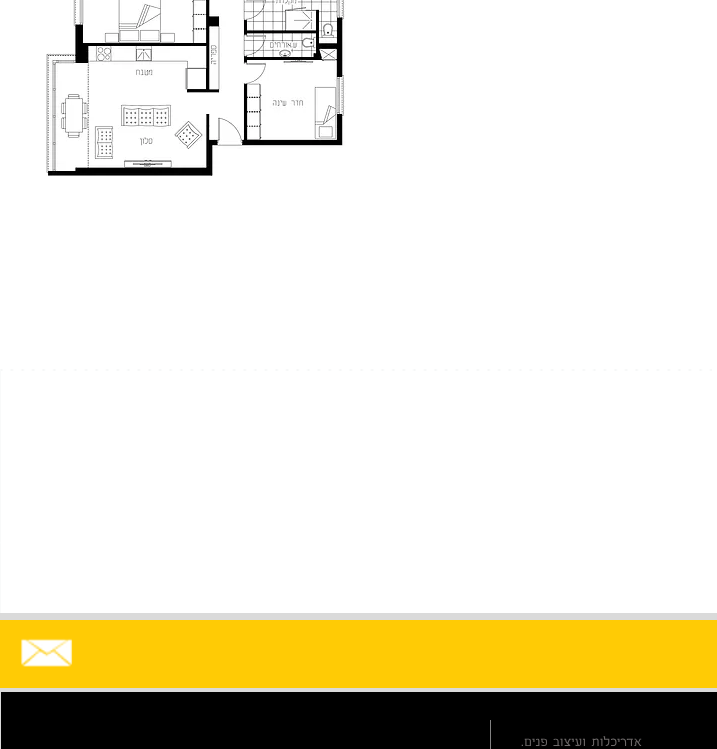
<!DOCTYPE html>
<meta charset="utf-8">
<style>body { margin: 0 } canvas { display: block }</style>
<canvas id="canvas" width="717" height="749"></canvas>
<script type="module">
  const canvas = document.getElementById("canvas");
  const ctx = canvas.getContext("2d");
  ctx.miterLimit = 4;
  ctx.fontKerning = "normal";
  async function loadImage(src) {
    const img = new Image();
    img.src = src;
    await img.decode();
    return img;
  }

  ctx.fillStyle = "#ffffff";
  ctx.fillRect(0, 0, 717, 749);
  ctx.drawImage(await loadImage("img1.png"), 0, 369, 712, 244);
  ctx.drawImage(await loadImage("img2.png"), 46, 0, 300, 176);
  ctx.fillRect(1, 371, 711, 242);
  ctx.fillStyle = "#dadada";
  ctx.fillRect(0, 613, 717, 136);
  ctx.fillStyle = "#ffcb05";
  ctx.fillRect(0, 620, 717, 68);
  ctx.drawImage(await loadImage("img3.png"), 20, 638, 53, 29);
  ctx.fillStyle = "#000000";
  ctx.fillRect(1, 692, 716, 57);
  ctx.wordSpacing = "2px";
  ctx.direction = "rtl";
  ctx.font = "12px 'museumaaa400'";
  ctx.fillStyle = "#6e6a6a";
  ctx.fillText("אדריכלות ועיצוב פנים", 642, 746);
  ctx.wordSpacing = "0px";
  ctx.direction = "ltr";
  ctx.fillText(".", 521, 746);
  ctx.fillStyle = "#828282";
  ctx.fillRect(490, 720, 1, 29);
</script>
